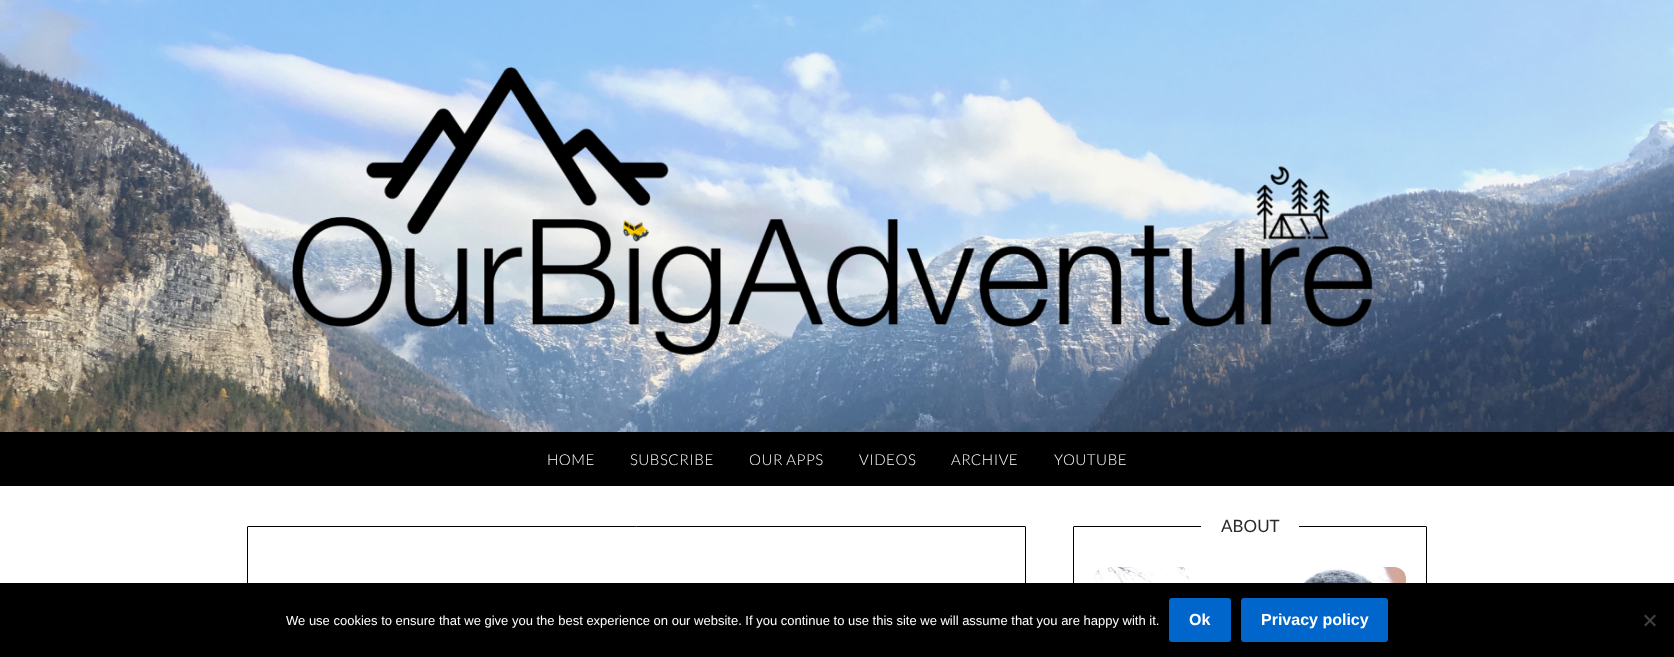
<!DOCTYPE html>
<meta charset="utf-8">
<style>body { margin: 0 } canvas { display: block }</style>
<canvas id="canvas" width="1674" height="657"></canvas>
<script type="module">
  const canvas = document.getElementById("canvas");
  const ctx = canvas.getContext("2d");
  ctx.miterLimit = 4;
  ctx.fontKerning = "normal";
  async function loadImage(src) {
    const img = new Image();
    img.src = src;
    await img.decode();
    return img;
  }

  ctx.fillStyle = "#ffffff";
  ctx.fillRect(0, 0, 1674, 657);
  ctx.drawImage(await loadImage("img1.png"), 0, 0, 1674, 432);
  ctx.drawImage(await loadImage("img2.png"), 292, 67, 1081, 289);
  ctx.fillStyle = "#000000";
  ctx.fillRect(0, 432, 1674, 54);
  ctx.letterSpacing = "0.5px";
  ctx.font = "300 15px Lato";
  ctx.fillStyle = "#ffffff";
  ctx.fillText("HOME", 547, 465);
  ctx.fillText("SUBSCRIBE", 630, 465);
  ctx.fillText("OUR APPS", 749, 465);
  ctx.fillText("VIDEOS", 859, 465);
  ctx.fillText("ARCHIVE", 951, 465);
  ctx.fillText("YOUTUBE", 1054, 465);
  ctx.beginPath();
  ctx.roundRect(247.5, 526.5, 778, 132, 0.5);
  ctx.strokeStyle = "#000000";
  ctx.stroke();
  ctx.beginPath();
  ctx.roundRect(1073.5, 526.5, 353, 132, 0.5);
  ctx.stroke();
  ctx.fillRect(1201, 526, 98, 1);
  ctx.letterSpacing = "0px";
  ctx.font = "17px Lato";
  ctx.fillStyle = "#2b2b2b";
  ctx.fillText("ABOUT", 1221, 532);
  ctx.drawImage(await loadImage("img3.png"), 1094, 567, 312, 16);
  ctx.fillStyle = "#000000";
  ctx.fillRect(0, 583, 1674, 74);
  ctx.font = "13px Liberation Sans";
  ctx.fillStyle = "#ffffff";
  ctx.fillText("We use cookies to ensure that we give you the best experience on our website. If you continue to use this site we will assume that you are happy with it.", 286, 625);
  ctx.fillStyle = "#0066cc";
  ctx.beginPath();
  ctx.roundRect(1169, 598, 62, 44, 3);
  ctx.fill();
  ctx.font = "bold 16px Liberation Sans";
  ctx.fillStyle = "#ffffff";
  ctx.fillText("Ok", 1189, 625);
  ctx.fillStyle = "#0066cc";
  ctx.beginPath();
  ctx.roundRect(1241, 598, 147, 44, 3);
  ctx.fill();
  ctx.fillStyle = "#ffffff";
  ctx.fillText("Privacy policy", 1261, 625);
  ctx.fillStyle = "#404040";
  ctx.beginPath();
  ctx.moveTo(1654.5, 614.5);
  ctx.lineTo(1656, 616);
  ctx.lineTo(1645.5, 626.5);
  ctx.lineTo(1644, 625);
  ctx.closePath();
  ctx.fill();
  ctx.beginPath();
  ctx.moveTo(1644, 616);
  ctx.lineTo(1645.5, 614.5);
  ctx.lineTo(1656, 625);
  ctx.lineTo(1654.5, 626.5);
  ctx.closePath();
  ctx.fill();
</script>
